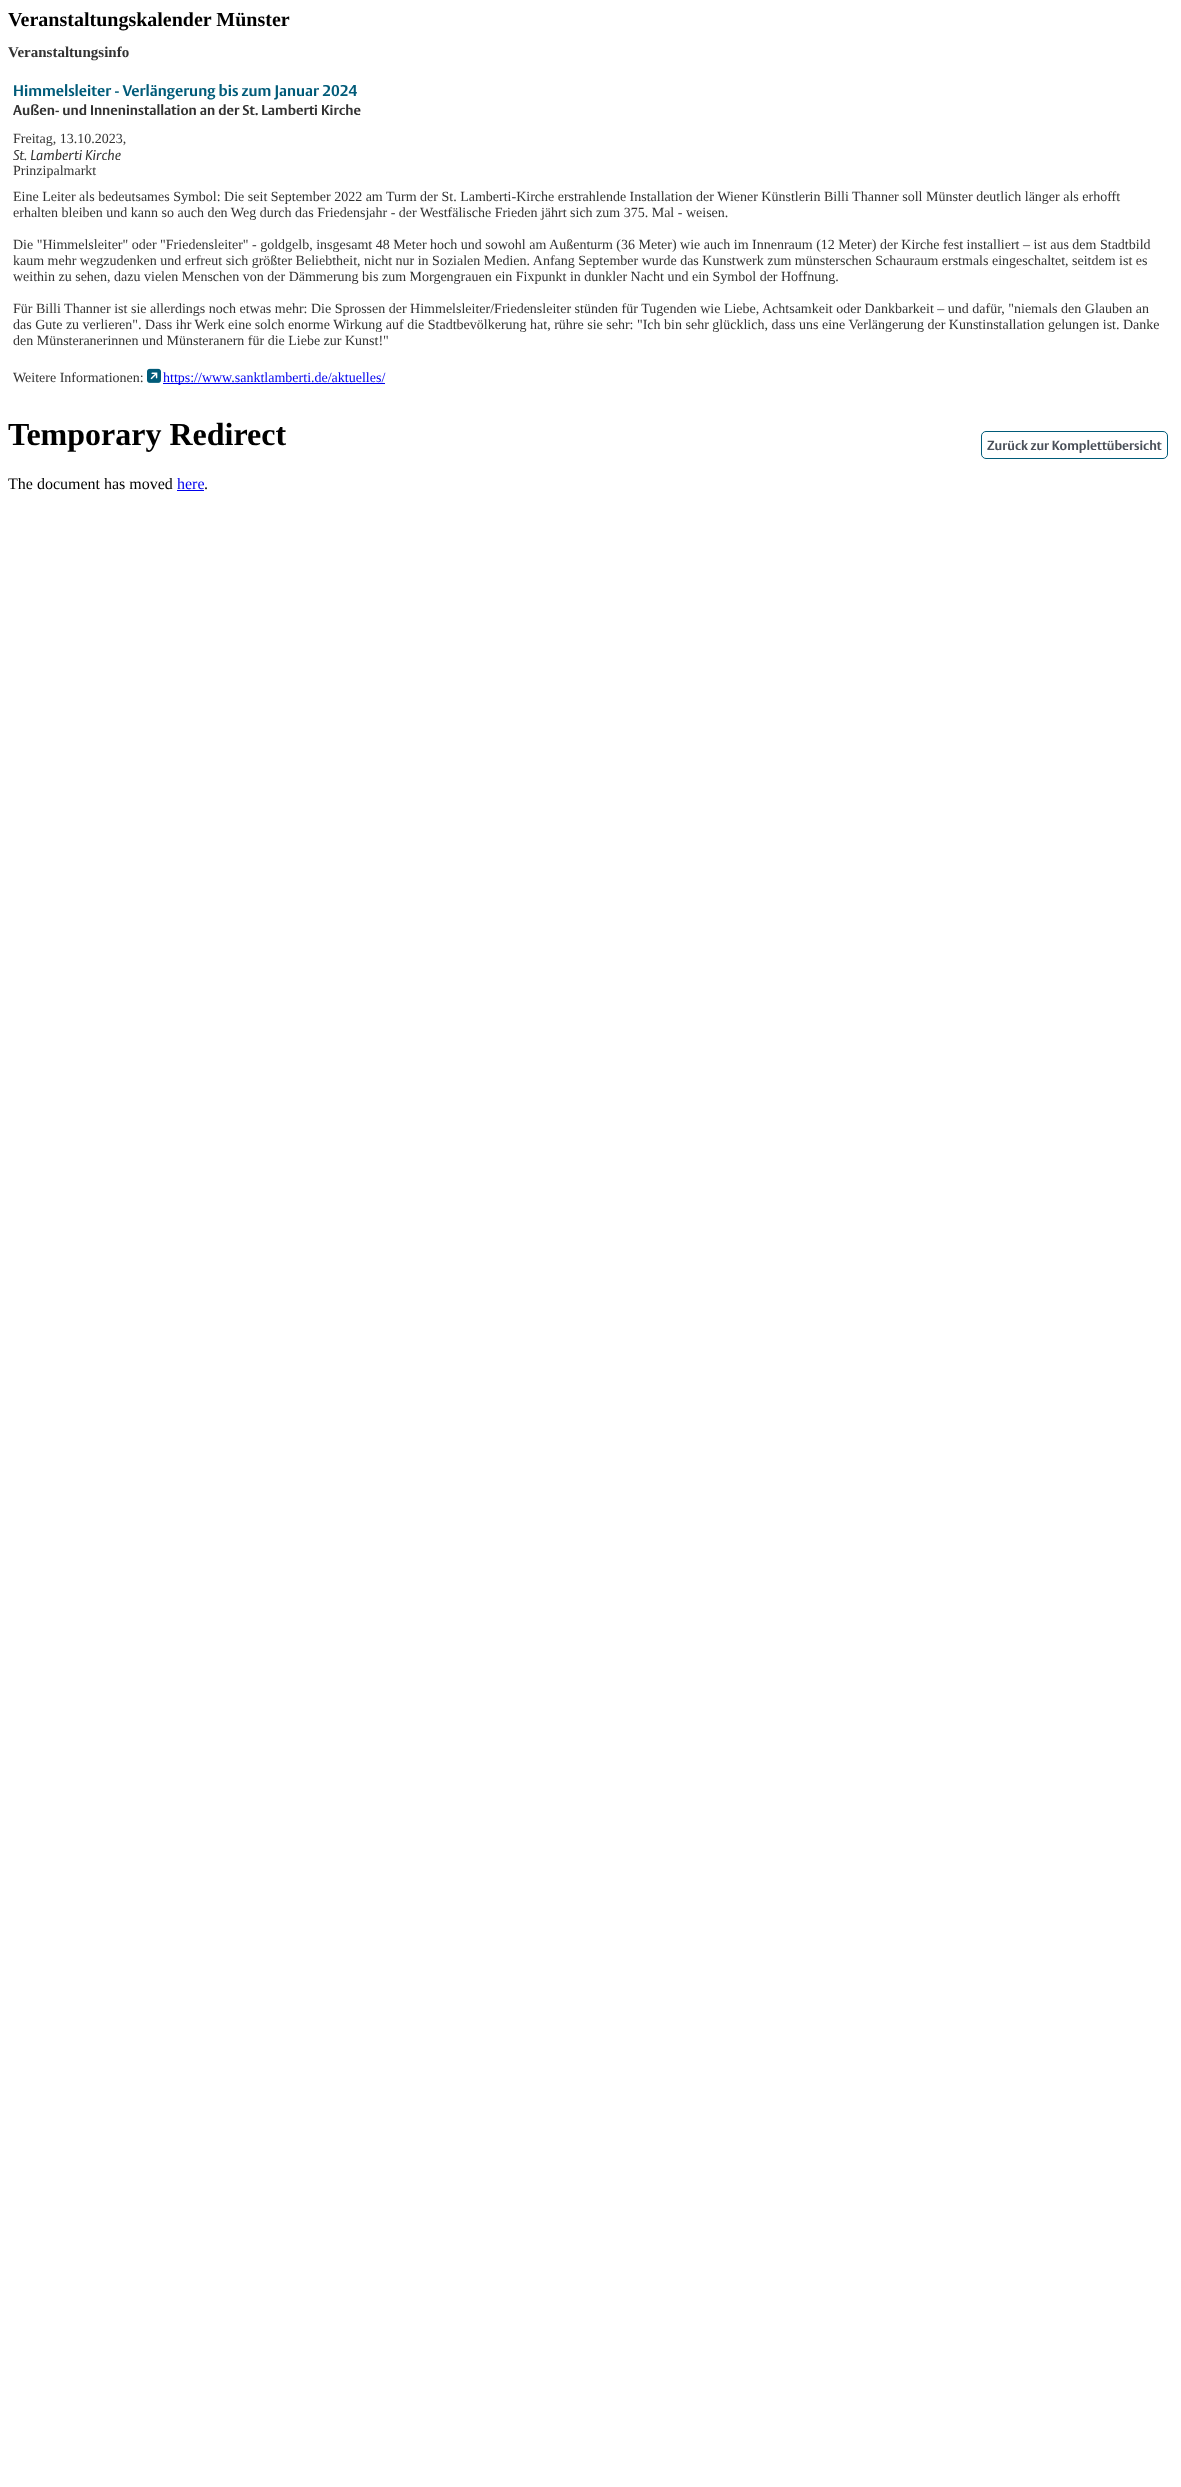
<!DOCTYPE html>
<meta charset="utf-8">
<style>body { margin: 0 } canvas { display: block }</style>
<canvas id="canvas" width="1181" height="2487"></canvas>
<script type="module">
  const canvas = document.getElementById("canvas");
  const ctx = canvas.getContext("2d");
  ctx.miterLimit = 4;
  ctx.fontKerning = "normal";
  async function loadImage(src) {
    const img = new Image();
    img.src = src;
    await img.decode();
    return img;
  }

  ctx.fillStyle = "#ffffff";
  ctx.fillRect(0, 0, 1181, 2487);
  ctx.font = "bold 20px Liberation Serif";
  ctx.fillStyle = "#000000";
  ctx.fillText("Veranstaltungskalender Münster", 8, 26);
  ctx.font = "bold 15px Liberation Serif";
  ctx.fillStyle = "#333333";
  ctx.fillText("Veranstaltungsinfo", 8, 57);
  ctx.font = "bold 15.4px 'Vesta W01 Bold'";
  ctx.fillStyle = "#005b79";
  ctx.fillText("Himmelsleiter - Verlängerung bis zum Januar 2024", 13, 96);
  ctx.font = "bold 14px 'Vesta W01 Bold'";
  ctx.fillStyle = "#333333";
  ctx.fillText("Außen- und Inneninstallation an der St. Lamberti Kirche", 13, 115);
  ctx.font = "14px Liberation Serif";
  ctx.fillText("Freitag, 13.10.2023,", 13, 143);
  ctx.font = "14px 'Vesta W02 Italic'";
  ctx.fillText("St. Lamberti Kirche", 13, 160);
  ctx.font = "14px Liberation Serif";
  ctx.fillText("Prinzipalmarkt", 13, 175);
  ctx.fillText("Eine Leiter als bedeutsames Symbol: Die seit September 2022 am Turm der St. Lamberti-Kirche erstrahlende Installation der Wiener Künstlerin Billi Thanner soll Münster deutlich länger als erhofft", 13, 201);
  ctx.fillText("erhalten bleiben und kann so auch den Weg durch das Friedensjahr - der Westfälische Frieden jährt sich zum 375. Mal - weisen.", 13, 217);
  ctx.fillText("Die \"Himmelsleiter\" oder \"Friedensleiter\" - goldgelb, insgesamt 48 Meter hoch und sowohl am Außenturm (36 Meter) wie auch im Innenraum (12 Meter) der Kirche fest installiert – ist aus dem Stadtbild", 13, 249);
  ctx.fillText("kaum mehr wegzudenken und erfreut sich größter Beliebtheit, nicht nur in Sozialen Medien. Anfang September wurde das Kunstwerk zum münsterschen Schauraum erstmals eingeschaltet, seitdem ist es", 13, 265);
  ctx.fillText("weithin zu sehen, dazu vielen Menschen von der Dämmerung bis zum Morgengrauen ein Fixpunkt in dunkler Nacht und ein Symbol der Hoffnung.", 13, 281);
  ctx.fillText("Für Billi Thanner ist sie allerdings noch etwas mehr: Die Sprossen der Himmelsleiter/Friedensleiter stünden für Tugenden wie Liebe, Achtsamkeit oder Dankbarkeit – und dafür, \"niemals den Glauben an", 13, 313);
  ctx.fillText("das Gute zu verlieren\". Dass ihr Werk eine solch enorme Wirkung auf die Stadtbevölkerung hat, rühre sie sehr: \"Ich bin sehr glücklich, dass uns eine Verlängerung der Kunstinstallation gelungen ist. Danke", 13, 329);
  ctx.fillText("den Münsteranerinnen und Münsteranern für die Liebe zur Kunst!\"", 13, 345);
  ctx.fillText("Weitere Informationen:", 13, 382);
  ctx.drawImage(await loadImage("img1.png"), 147, 368, 14, 15);
  ctx.fillStyle = "#0000ee";
  ctx.fillRect(163, 383, 222, 1);
  ctx.fillText("https://www.sanktlamberti.de/aktuelles/", 163, 382);
  ctx.beginPath();
  ctx.roundRect(981.5, 431.5, 186, 27, 4.5);
  ctx.strokeStyle = "#005b79";
  ctx.stroke();
  ctx.font = "bold 13px 'Vesta W01 Bold'";
  ctx.fillStyle = "#4a5059";
  ctx.fillText("Zurück zur Komplettübersicht", 987, 450);
  ctx.font = "bold 32px Liberation Serif";
  ctx.fillStyle = "#000000";
  ctx.fillText("Temporary Redirect", 8, 445);
  ctx.font = "16px Liberation Serif";
  ctx.fillText("The document has moved", 8, 489);
  ctx.fillStyle = "#0000ee";
  ctx.fillText("here", 177, 489);
  ctx.fillRect(177, 490, 27, 1);
  ctx.fillStyle = "#000000";
  ctx.fillText(".", 204, 489);
</script>
